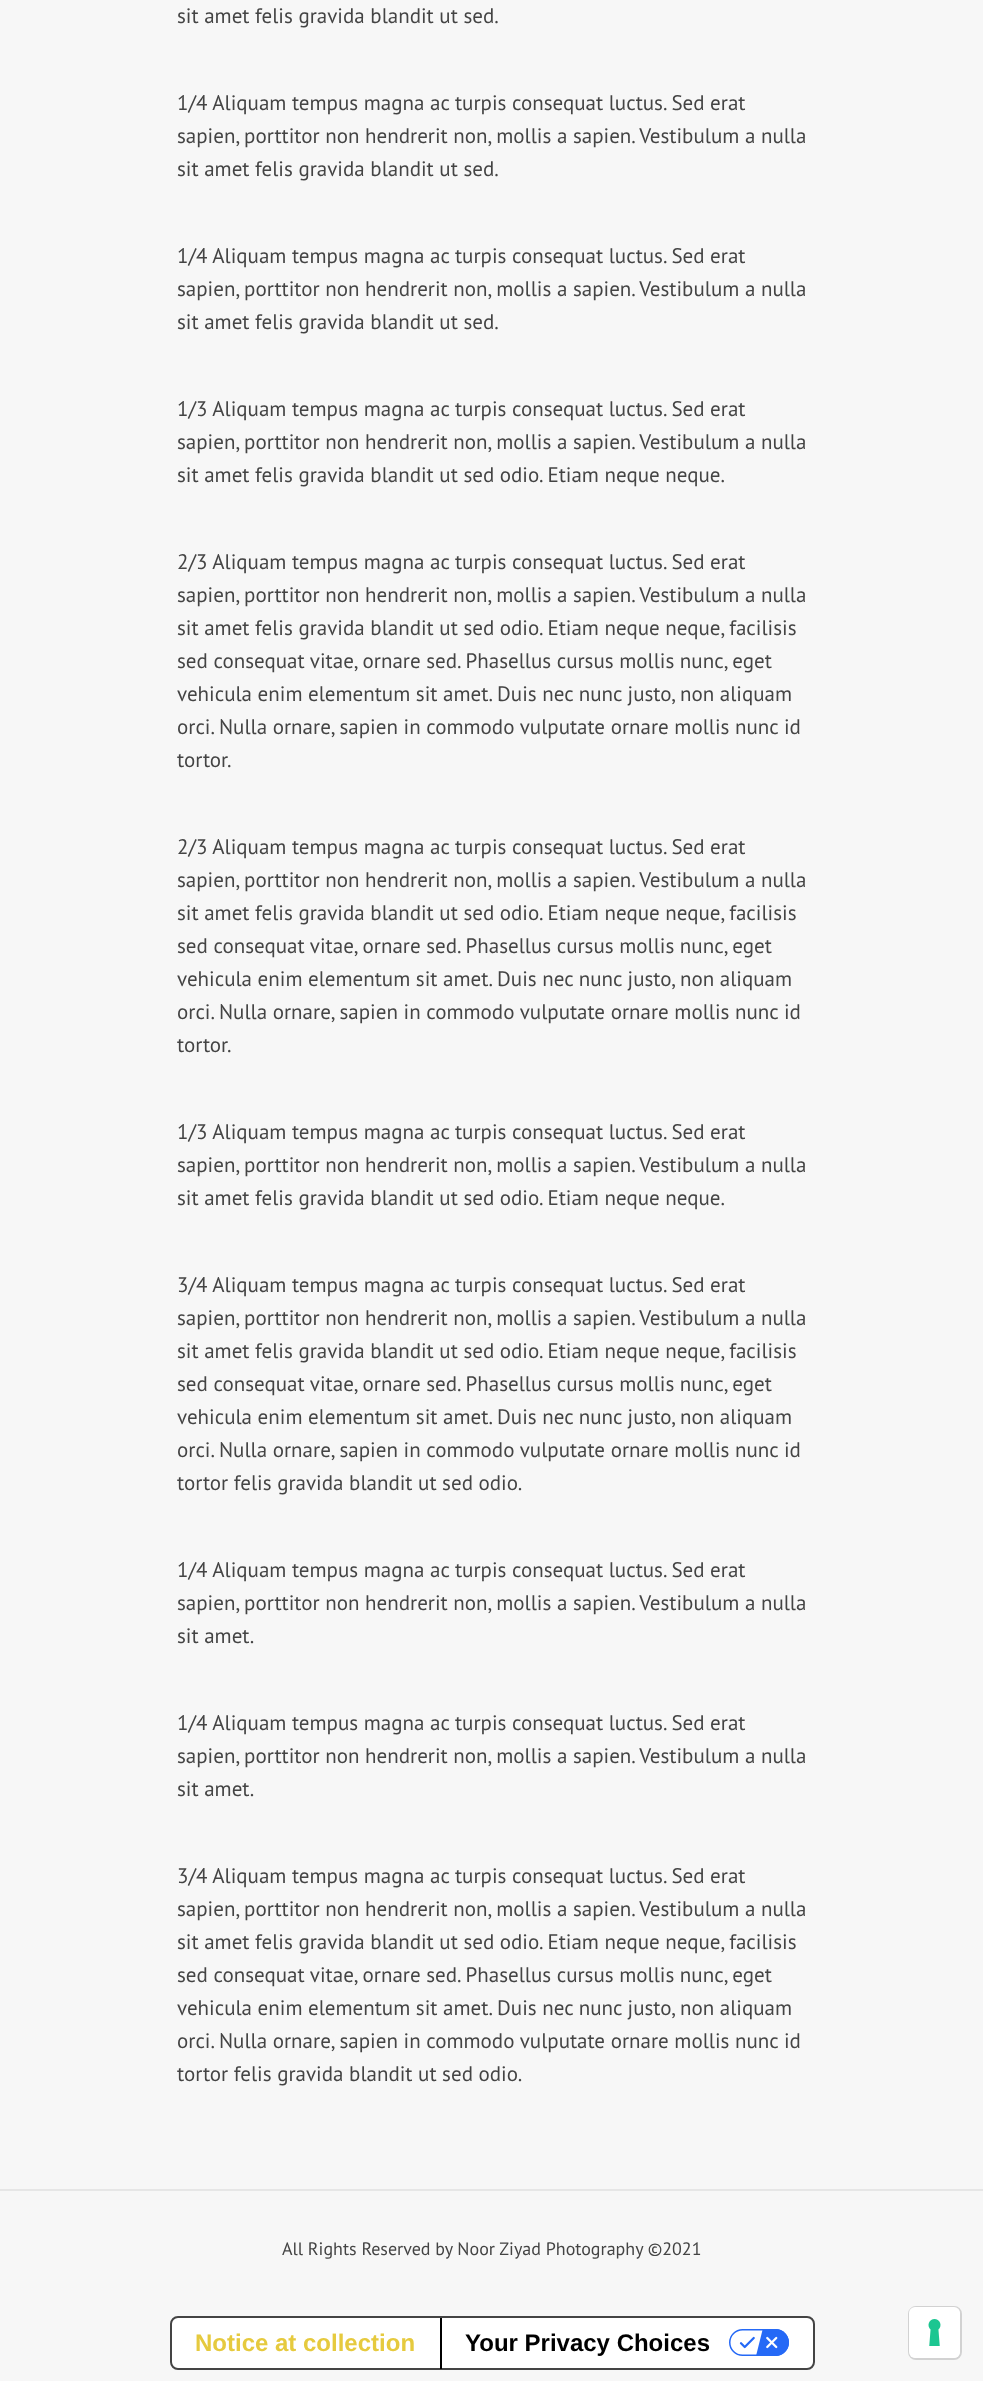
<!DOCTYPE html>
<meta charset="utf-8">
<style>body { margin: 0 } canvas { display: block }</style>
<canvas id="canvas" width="983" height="2381"></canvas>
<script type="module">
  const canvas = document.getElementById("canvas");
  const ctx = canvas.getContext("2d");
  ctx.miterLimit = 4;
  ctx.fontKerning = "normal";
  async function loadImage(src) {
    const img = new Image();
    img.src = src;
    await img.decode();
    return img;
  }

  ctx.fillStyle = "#f7f7f7";
  ctx.fillRect(0, 0, 983, 2381);
  ctx.font = "21px PT Sans";
  ctx.fillStyle = "#444444";
  ctx.fillText("sit amet felis gravida blandit ut sed.", 177, 23);
  ctx.fillText("1/4 Aliquam tempus magna ac turpis consequat luctus. Sed erat", 177, 110);
  ctx.fillText("sapien, porttitor non hendrerit non, mollis a sapien. Vestibulum a nulla", 177, 143);
  ctx.fillText("sit amet felis gravida blandit ut sed.", 177, 176);
  ctx.fillText("1/4 Aliquam tempus magna ac turpis consequat luctus. Sed erat", 177, 263);
  ctx.fillText("sapien, porttitor non hendrerit non, mollis a sapien. Vestibulum a nulla", 177, 296);
  ctx.fillText("sit amet felis gravida blandit ut sed.", 177, 329);
  ctx.fillText("1/3 Aliquam tempus magna ac turpis consequat luctus. Sed erat", 177, 416);
  ctx.fillText("sapien, porttitor non hendrerit non, mollis a sapien. Vestibulum a nulla", 177, 449);
  ctx.fillText("sit amet felis gravida blandit ut sed odio. Etiam neque neque.", 177, 482);
  ctx.fillText("2/3 Aliquam tempus magna ac turpis consequat luctus. Sed erat", 177, 569);
  ctx.fillText("sapien, porttitor non hendrerit non, mollis a sapien. Vestibulum a nulla", 177, 602);
  ctx.fillText("sit amet felis gravida blandit ut sed odio. Etiam neque neque, facilisis", 177, 635);
  ctx.fillText("sed consequat vitae, ornare sed. Phasellus cursus mollis nunc, eget", 177, 668);
  ctx.fillText("vehicula enim elementum sit amet. Duis nec nunc justo, non aliquam", 177, 701);
  ctx.fillText("orci. Nulla ornare, sapien in commodo vulputate ornare mollis nunc id", 177, 734);
  ctx.fillText("tortor.", 177, 767);
  ctx.fillText("2/3 Aliquam tempus magna ac turpis consequat luctus. Sed erat", 177, 854);
  ctx.fillText("sapien, porttitor non hendrerit non, mollis a sapien. Vestibulum a nulla", 177, 887);
  ctx.fillText("sit amet felis gravida blandit ut sed odio. Etiam neque neque, facilisis", 177, 920);
  ctx.fillText("sed consequat vitae, ornare sed. Phasellus cursus mollis nunc, eget", 177, 953);
  ctx.fillText("vehicula enim elementum sit amet. Duis nec nunc justo, non aliquam", 177, 986);
  ctx.fillText("orci. Nulla ornare, sapien in commodo vulputate ornare mollis nunc id", 177, 1019);
  ctx.fillText("tortor.", 177, 1052);
  ctx.fillText("1/3 Aliquam tempus magna ac turpis consequat luctus. Sed erat", 177, 1139);
  ctx.fillText("sapien, porttitor non hendrerit non, mollis a sapien. Vestibulum a nulla", 177, 1172);
  ctx.fillText("sit amet felis gravida blandit ut sed odio. Etiam neque neque.", 177, 1205);
  ctx.fillText("3/4 Aliquam tempus magna ac turpis consequat luctus. Sed erat", 177, 1292);
  ctx.fillText("sapien, porttitor non hendrerit non, mollis a sapien. Vestibulum a nulla", 177, 1325);
  ctx.fillText("sit amet felis gravida blandit ut sed odio. Etiam neque neque, facilisis", 177, 1358);
  ctx.fillText("sed consequat vitae, ornare sed. Phasellus cursus mollis nunc, eget", 177, 1391);
  ctx.fillText("vehicula enim elementum sit amet. Duis nec nunc justo, non aliquam", 177, 1424);
  ctx.fillText("orci. Nulla ornare, sapien in commodo vulputate ornare mollis nunc id", 177, 1457);
  ctx.fillText("tortor felis gravida blandit ut sed odio.", 177, 1490);
  ctx.fillText("1/4 Aliquam tempus magna ac turpis consequat luctus. Sed erat", 177, 1577);
  ctx.fillText("sapien, porttitor non hendrerit non, mollis a sapien. Vestibulum a nulla", 177, 1610);
  ctx.fillText("sit amet.", 177, 1643);
  ctx.fillText("1/4 Aliquam tempus magna ac turpis consequat luctus. Sed erat", 177, 1730);
  ctx.fillText("sapien, porttitor non hendrerit non, mollis a sapien. Vestibulum a nulla", 177, 1763);
  ctx.fillText("sit amet.", 177, 1796);
  ctx.fillText("3/4 Aliquam tempus magna ac turpis consequat luctus. Sed erat", 177, 1883);
  ctx.fillText("sapien, porttitor non hendrerit non, mollis a sapien. Vestibulum a nulla", 177, 1916);
  ctx.fillText("sit amet felis gravida blandit ut sed odio. Etiam neque neque, facilisis", 177, 1949);
  ctx.fillText("sed consequat vitae, ornare sed. Phasellus cursus mollis nunc, eget", 177, 1982);
  ctx.fillText("vehicula enim elementum sit amet. Duis nec nunc justo, non aliquam", 177, 2015);
  ctx.fillText("orci. Nulla ornare, sapien in commodo vulputate ornare mollis nunc id", 177, 2048);
  ctx.fillText("tortor felis gravida blandit ut sed odio.", 177, 2081);
  ctx.fillStyle = "#e6e6e6";
  ctx.fillRect(0, 2189, 983, 2);
  ctx.font = "18px PT Sans";
  ctx.fillStyle = "#444444";
  ctx.fillText("All Rights Reserved by Noor Ziyad Photography ©2021", 282, 2255);
  ctx.fillStyle = "#ffffff";
  ctx.beginPath();
  ctx.roundRect(171, 2317, 643, 52, 7);
  ctx.fill();
  ctx.strokeStyle = "#444444";
  ctx.lineWidth = 2;
  ctx.stroke();
  ctx.font = "bold 24px Liberation Sans";
  ctx.fillStyle = "#e6ca3e";
  ctx.fillText("Notice at collection", 195, 2351);
  ctx.fillStyle = "#000000";
  ctx.fillRect(440, 2318, 2, 51);
  ctx.fillText("Your Privacy Choices", 465, 2351);
  ctx.drawImage(await loadImage("img1.png"), 729, 2329, 60, 27);
  ctx.beginPath();
  ctx.roundRect(909, 2307, 52, 52, 7);
  ctx.strokeStyle = "#d2d2d2";
  ctx.stroke();
  ctx.fillStyle = "#ffffff";
  ctx.beginPath();
  ctx.roundRect(909, 2307, 51, 51, 6);
  ctx.fill();
  ctx.drawImage(await loadImage("img2.png"), 928, 2319, 13, 27);
</script>
